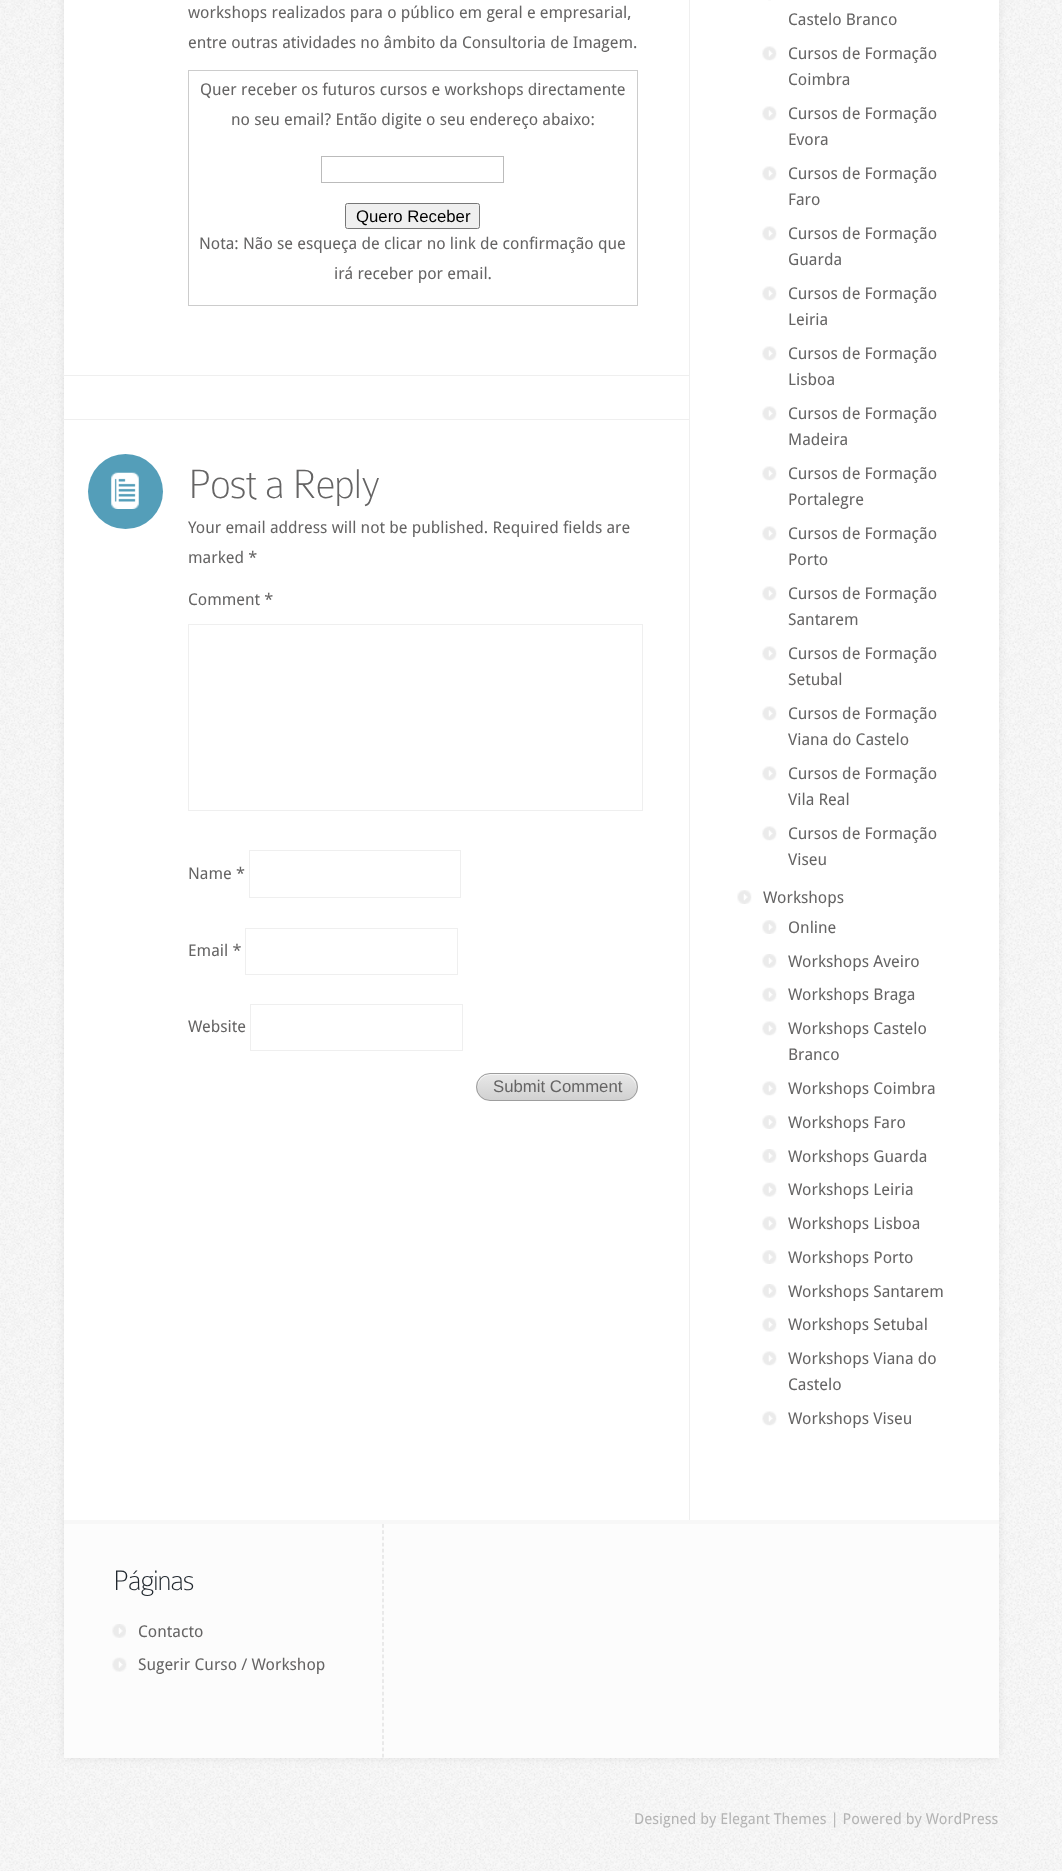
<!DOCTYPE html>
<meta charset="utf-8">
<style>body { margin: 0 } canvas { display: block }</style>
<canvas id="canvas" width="1062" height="1871"></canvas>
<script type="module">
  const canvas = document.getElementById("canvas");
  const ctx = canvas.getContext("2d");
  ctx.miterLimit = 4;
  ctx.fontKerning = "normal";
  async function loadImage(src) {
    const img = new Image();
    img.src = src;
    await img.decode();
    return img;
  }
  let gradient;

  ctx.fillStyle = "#f8f8f8";
  ctx.fillRect(0, 0, 1062, 1871);
  ctx.drawImage(await loadImage("img1.png"), 0, 0, 1062, 1871);
  ctx.fillStyle = "rgba(0, 0, 0, 0.08)";
  ctx.filter = "blur(4.5px)";
  ctx.beginPath();
  ctx.rect(64, -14, 935, 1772);
  ctx.fill();
  ctx.filter = "none";
  ctx.fillStyle = "#ffffff";
  ctx.fillRect(64, 0, 935, 1520);
  ctx.font = "16.25px Droid Sans";
  ctx.fillStyle = "#656464";
  ctx.fillText("workshops realizados para o público em geral e empresarial,", 188, 18);
  ctx.fillText("entre outras atividades no âmbito da Consultoria de Imagem.", 188, 48);
  ctx.strokeStyle = "#cccccc";
  ctx.strokeRect(188.5, 70.5, 449, 235);
  ctx.fillText("Quer receber os futuros cursos e workshops directamente", 200, 95);
  ctx.fillText("no seu email? Então digite o seu endereço abaixo:", 231, 125);
  ctx.strokeStyle = "#bbbbbb";
  ctx.strokeRect(321.5, 156.5, 182, 26);
  ctx.fillStyle = "#efefef";
  ctx.beginPath();
  ctx.roundRect(345.5, 203.5, 134, 25, 2);
  ctx.fill();
  ctx.strokeStyle = "#767676";
  ctx.stroke();
  ctx.font = "16.75px Liberation Sans";
  ctx.fillStyle = "#000000";
  ctx.fillText("Quero Receber", 356, 222);
  ctx.font = "16.25px Droid Sans";
  ctx.fillStyle = "#656464";
  ctx.fillText("Nota: Não se esqueça de clicar no link de confirmação que", 199, 249);
  ctx.fillText("irá receber por email.", 334, 279);
  ctx.fillStyle = "#efefef";
  ctx.fillRect(689, 0, 1, 1520);
  ctx.fillRect(63, 375, 627, 1);
  ctx.fillRect(63, 419, 627, 1);
  ctx.fillStyle = "#549eb9";
  ctx.beginPath();
  ctx.arc(125.5, 491.5, 37.5, 0, Math.PI * 2);
  ctx.fill();
  ctx.letterSpacing = "-1.25px";
  ctx.font = "100 43.75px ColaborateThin";
  ctx.fillStyle = "#656464";
  ctx.fillText("Post a Reply", 188, 498);
  ctx.drawImage(await loadImage("img2.png"), 111, 472, 28, 37);
  ctx.letterSpacing = "0px";
  ctx.font = "16.25px Droid Sans";
  ctx.fillText("Your email address will not be published. Required fields are", 188, 533);
  ctx.fillText("marked *", 188, 563);
  ctx.fillText("Comment *", 188, 605);
  ctx.strokeStyle = "#efefef";
  ctx.strokeRect(188.5, 624.5, 454, 186);
  ctx.fillText("Name *", 188, 879);
  ctx.strokeRect(249.5, 850.5, 211, 47);
  ctx.fillText("Email *", 188, 956);
  ctx.strokeRect(245.5, 928.5, 212, 46);
  ctx.fillText("Website", 188, 1032);
  ctx.strokeRect(250.5, 1004.5, 212, 46);
  ctx.save();
  ctx.beginPath();
  ctx.roundRect(476, 1073, 162, 28, 14);
  ctx.clip();
  gradient = ctx.createLinearGradient(557, 1074, 557, 1100);
  gradient.addColorStop(0, "#e8e8e8");
  gradient.addColorStop(1, "#d1d1d1");
  ctx.fillStyle = gradient;
  ctx.fillRect(476, 1074, 162, 26);
  ctx.restore();
  ctx.fillStyle = "#f5f5f5";
  ctx.beginPath();
  ctx.moveTo(491, 1075);
  ctx.lineTo(623, 1075);
  ctx.bezierCurveTo(630, 1075, 636, 1081, 636, 1088);
  ctx.bezierCurveTo(637, 1069, 611, 1074, 601, 1074);
  ctx.lineTo(513, 1074);
  ctx.bezierCurveTo(503, 1074, 477, 1069, 478, 1087);
  ctx.bezierCurveTo(478, 1081, 483, 1075, 491, 1075);
  ctx.closePath();
  ctx.fill();
  ctx.beginPath();
  ctx.roundRect(476.5, 1073.5, 161, 27, 13.5);
  ctx.strokeStyle = "#9d9d9d";
  ctx.stroke();
  ctx.font = "16.75px Liberation Sans";
  ctx.fillStyle = "#656464";
  ctx.fillText("Submit Comment", 493, 1092);
  ctx.drawImage(await loadImage("img3.png"), 768, 0, 3, 1);
  ctx.font = "16.25px Droid Sans";
  ctx.fillText("Castelo Branco", 788, 25);
  ctx.drawImage(await loadImage("img4.png"), 762, 46, 15, 15);
  ctx.fillText("Cursos de Formação", 788, 59);
  ctx.fillText("Coimbra", 788, 85);
  ctx.drawImage(await loadImage("img4.png"), 762, 106, 15, 15);
  ctx.fillText("Cursos de Formação", 788, 119);
  ctx.fillText("Evora", 788, 145);
  ctx.drawImage(await loadImage("img4.png"), 762, 166, 15, 15);
  ctx.fillText("Cursos de Formação", 788, 179);
  ctx.fillText("Faro", 788, 205);
  ctx.drawImage(await loadImage("img4.png"), 762, 226, 15, 15);
  ctx.fillText("Cursos de Formação", 788, 239);
  ctx.fillText("Guarda", 788, 265);
  ctx.drawImage(await loadImage("img4.png"), 762, 286, 15, 15);
  ctx.fillText("Cursos de Formação", 788, 299);
  ctx.fillText("Leiria", 788, 325);
  ctx.drawImage(await loadImage("img4.png"), 762, 346, 15, 15);
  ctx.fillText("Cursos de Formação", 788, 359);
  ctx.fillText("Lisboa", 788, 385);
  ctx.drawImage(await loadImage("img4.png"), 762, 406, 15, 15);
  ctx.fillText("Cursos de Formação", 788, 419);
  ctx.fillText("Madeira", 788, 445);
  ctx.drawImage(await loadImage("img4.png"), 762, 466, 15, 15);
  ctx.fillText("Cursos de Formação", 788, 479);
  ctx.fillText("Portalegre", 788, 505);
  ctx.drawImage(await loadImage("img4.png"), 762, 526, 15, 15);
  ctx.fillText("Cursos de Formação", 788, 539);
  ctx.fillText("Porto", 788, 565);
  ctx.drawImage(await loadImage("img4.png"), 762, 586, 15, 15);
  ctx.fillText("Cursos de Formação", 788, 599);
  ctx.fillText("Santarem", 788, 625);
  ctx.drawImage(await loadImage("img5.png"), 762, 646, 15, 15);
  ctx.fillText("Cursos de Formação", 788, 659);
  ctx.fillText("Setubal", 788, 685);
  ctx.drawImage(await loadImage("img4.png"), 762, 706, 15, 15);
  ctx.fillText("Cursos de Formação", 788, 719);
  ctx.fillText("Viana do Castelo", 788, 745);
  ctx.drawImage(await loadImage("img4.png"), 762, 766, 15, 15);
  ctx.fillText("Cursos de Formação", 788, 779);
  ctx.fillText("Vila Real", 788, 805);
  ctx.drawImage(await loadImage("img4.png"), 762, 826, 15, 15);
  ctx.fillText("Cursos de Formação", 788, 839);
  ctx.fillText("Viseu", 788, 865);
  ctx.drawImage(await loadImage("img6.png"), 737, 890, 15, 14);
  ctx.fillText("Workshops", 763, 903);
  ctx.drawImage(await loadImage("img6.png"), 762, 920, 15, 14);
  ctx.fillText("Online", 788, 933);
  ctx.drawImage(await loadImage("img7.png"), 762, 954, 15, 14);
  ctx.fillText("Workshops Aveiro", 788, 967);
  ctx.drawImage(await loadImage("img8.png"), 762, 987, 15, 15);
  ctx.fillText("Workshops Braga", 788, 1000);
  ctx.drawImage(await loadImage("img4.png"), 762, 1021, 15, 15);
  ctx.fillText("Workshops Castelo", 788, 1034);
  ctx.fillText("Branco", 788, 1060);
  ctx.drawImage(await loadImage("img4.png"), 762, 1081, 15, 15);
  ctx.fillText("Workshops Coimbra", 788, 1094);
  ctx.drawImage(await loadImage("img6.png"), 762, 1115, 15, 14);
  ctx.fillText("Workshops Faro", 788, 1128);
  ctx.drawImage(await loadImage("img7.png"), 762, 1149, 15, 14);
  ctx.fillText("Workshops Guarda", 788, 1162);
  ctx.drawImage(await loadImage("img8.png"), 762, 1182, 15, 15);
  ctx.fillText("Workshops Leiria", 788, 1195);
  ctx.drawImage(await loadImage("img4.png"), 762, 1216, 15, 15);
  ctx.fillText("Workshops Lisboa", 788, 1229);
  ctx.drawImage(await loadImage("img6.png"), 762, 1250, 15, 14);
  ctx.fillText("Workshops Porto", 788, 1263);
  ctx.drawImage(await loadImage("img7.png"), 762, 1284, 15, 14);
  ctx.fillText("Workshops Santarem", 788, 1297);
  ctx.drawImage(await loadImage("img8.png"), 762, 1317, 15, 15);
  ctx.fillText("Workshops Setubal", 788, 1330);
  ctx.drawImage(await loadImage("img4.png"), 762, 1351, 15, 15);
  ctx.fillText("Workshops Viana do", 788, 1364);
  ctx.fillText("Castelo", 788, 1390);
  ctx.drawImage(await loadImage("img4.png"), 762, 1411, 15, 15);
  ctx.fillText("Workshops Viseu", 788, 1424);
  ctx.fillStyle = "#fcfcfc";
  ctx.fillRect(64, 1524, 935, 234);
  ctx.fillStyle = "#f7f7f7";
  ctx.fillRect(64, 1520, 935, 4);
  ctx.beginPath();
  ctx.moveTo(383, 1524);
  ctx.lineTo(383, 1757.5);
  ctx.strokeStyle = "#dcdcdc";
  ctx.lineWidth = 1.2;
  ctx.setLineDash([3.75, 2.46]);
  ctx.stroke();
  ctx.letterSpacing = "-1.25px";
  ctx.font = "100 30px ColaborateThin";
  ctx.fillStyle = "#1f262d";
  ctx.fillText("Páginas", 113, 1590);
  ctx.drawImage(await loadImage("img9.png"), 112, 1624, 14, 14);
  ctx.letterSpacing = "0px";
  ctx.font = "16.25px Droid Sans";
  ctx.fillStyle = "#656464";
  ctx.fillText("Contacto", 138, 1637);
  ctx.drawImage(await loadImage("img10.png"), 112, 1657, 15, 15);
  ctx.fillText("Sugerir Curso / Workshop", 138, 1670);
  ctx.font = "15px Droid Sans";
  ctx.fillStyle = "#b4b4b4";
  ctx.fillText("Designed by Elegant Themes | Powered by WordPress", 634, 1824);
</script>
